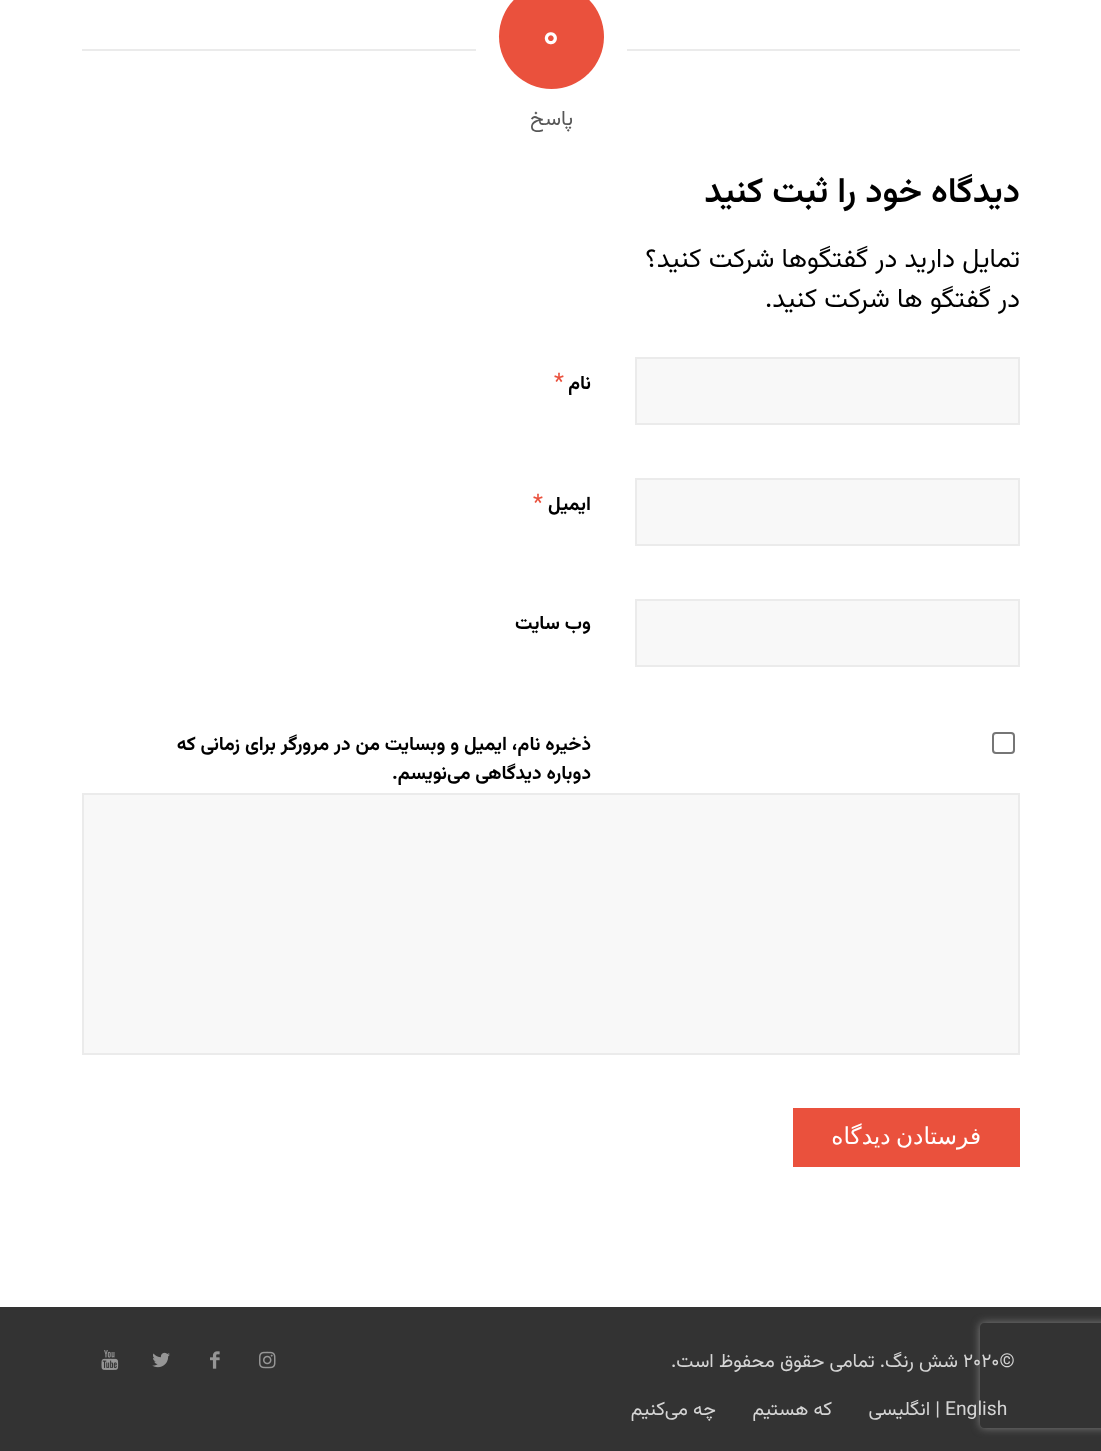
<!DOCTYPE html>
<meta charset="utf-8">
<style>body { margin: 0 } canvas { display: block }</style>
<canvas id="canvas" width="1101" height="1451"></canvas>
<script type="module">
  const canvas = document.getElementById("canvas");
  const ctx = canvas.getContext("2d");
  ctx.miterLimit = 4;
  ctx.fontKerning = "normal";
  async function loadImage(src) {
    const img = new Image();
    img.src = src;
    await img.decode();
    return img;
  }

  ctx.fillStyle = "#ffffff";
  ctx.fillRect(0, 0, 1101, 1451);
  ctx.fillStyle = "#333333";
  ctx.fillRect(0, 1307, 1101, 144);
  ctx.save();
  ctx.beginPath();
  ctx.moveTo(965, 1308);
  ctx.lineTo(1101, 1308);
  ctx.lineTo(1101, 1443);
  ctx.lineTo(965, 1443);
  ctx.closePath();
  ctx.moveTo(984, 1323);
  ctx.lineTo(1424, 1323);
  ctx.bezierCurveTo(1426, 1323, 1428, 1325, 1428, 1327);
  ctx.lineTo(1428, 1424);
  ctx.bezierCurveTo(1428, 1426, 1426, 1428, 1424, 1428);
  ctx.lineTo(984, 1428);
  ctx.bezierCurveTo(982, 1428, 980, 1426, 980, 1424);
  ctx.lineTo(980, 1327);
  ctx.bezierCurveTo(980, 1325, 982, 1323, 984, 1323);
  ctx.closePath();
  ctx.clip("evenodd");
  ctx.fillStyle = "#808080";
  ctx.filter = "blur(4.5px)";
  ctx.beginPath();
  ctx.roundRect(980, 1323, 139, 105, 4);
  ctx.fill();
  ctx.filter = "none";
  ctx.restore();
  ctx.fillStyle = "#ea513d";
  ctx.beginPath();
  ctx.arc(551.5, 36.5, 52.5, 0, Math.PI * 2);
  ctx.fill();
  ctx.font = "42px Vazirmatn";
  ctx.fillStyle = "#ffffff";
  ctx.fillText("۰", 542, 48);
  ctx.fillStyle = "#ebebeb";
  ctx.fillRect(627, 49, 393, 2);
  ctx.fillRect(82, 49, 394, 2);
  ctx.direction = "rtl";
  ctx.font = "21px Vazirmatn";
  ctx.fillStyle = "#575757";
  ctx.fillText("پاسخ", 573, 125);
  ctx.font = "600 35px Vazirmatn";
  ctx.fillStyle = "#000000";
  ctx.fillText("دیدگاه خود را ثبت کنید", 1020, 202);
  ctx.font = "26.75px Vazirmatn";
  ctx.fillText("تمایل دارید در گفتگوها شرکت کنید؟", 1020, 267);
  ctx.fillText("در گفتگو ها شرکت کنید.", 1020, 307);
  ctx.fillStyle = "#f8f8f8";
  ctx.beginPath();
  ctx.rect(636, 358, 383, 66);
  ctx.fill();
  ctx.strokeStyle = "#ebebeb";
  ctx.lineWidth = 2;
  ctx.stroke();
  ctx.font = "bold 19.25px Vazirmatn";
  ctx.fillStyle = "#000000";
  ctx.fillText("نام", 591, 389);
  ctx.direction = "ltr";
  ctx.font = "23px Vazirmatn";
  ctx.fillStyle = "#ea513d";
  ctx.fillText("*", 554, 389);
  ctx.fillStyle = "#f8f8f8";
  ctx.beginPath();
  ctx.rect(636, 479, 383, 66);
  ctx.fill();
  ctx.stroke();
  ctx.direction = "rtl";
  ctx.font = "bold 19.25px Vazirmatn";
  ctx.fillStyle = "#000000";
  ctx.fillText("ایمیل", 591, 510);
  ctx.direction = "ltr";
  ctx.font = "23px Vazirmatn";
  ctx.fillStyle = "#ea513d";
  ctx.fillText("*", 533, 510);
  ctx.fillStyle = "#f8f8f8";
  ctx.beginPath();
  ctx.rect(636, 600, 383, 66);
  ctx.fill();
  ctx.stroke();
  ctx.direction = "rtl";
  ctx.font = "bold 19.25px Vazirmatn";
  ctx.fillStyle = "#000000";
  ctx.fillText("وب‌ سایت", 591, 629);
  ctx.beginPath();
  ctx.roundRect(993, 733, 21, 20, 3);
  ctx.strokeStyle = "#767676";
  ctx.stroke();
  ctx.fillText("ذخیره نام، ایمیل و وبسایت من در مرورگر برای زمانی که", 591, 750);
  ctx.fillText("دوباره دیدگاهی می‌نویسم.", 591, 779);
  ctx.fillStyle = "#f8f8f8";
  ctx.beginPath();
  ctx.rect(83, 794, 936, 260);
  ctx.fill();
  ctx.strokeStyle = "#ebebeb";
  ctx.stroke();
  ctx.fillStyle = "#ea513d";
  ctx.fillRect(793, 1108, 227, 59);
  ctx.wordSpacing = "-2px";
  ctx.font = "23.25px DejaVu Sans";
  ctx.fillStyle = "#ffffff";
  ctx.fillText("فرستادن دیدگاه", 981, 1144);
  ctx.wordSpacing = "0px";
  ctx.direction = "ltr";
  ctx.font = "19.25px Vazirmatn";
  ctx.fillStyle = "#d5d5d5";
  ctx.fillText("۲۰۲۰©", 963, 1367);
  ctx.direction = "rtl";
  ctx.fillText("شش رنگ. تمامی حقوق محفوظ است.", 958, 1367);
  ctx.drawImage(await loadImage("img1.png"), 259, 1351, 17, 18);
  ctx.drawImage(await loadImage("img2.png"), 210, 1351, 10, 18);
  ctx.drawImage(await loadImage("img3.png"), 152, 1352, 18, 16);
  ctx.drawImage(await loadImage("img4.png"), 101, 1350, 18, 20);
  ctx.direction = "ltr";
  ctx.fillText("English", 945, 1415);
  ctx.direction = "rtl";
  ctx.fillText("| انگلیسی", 940, 1415);
  ctx.fillText("که هستیم", 832, 1415);
  ctx.fillText("چه می‌کنیم", 716, 1415);
</script>
